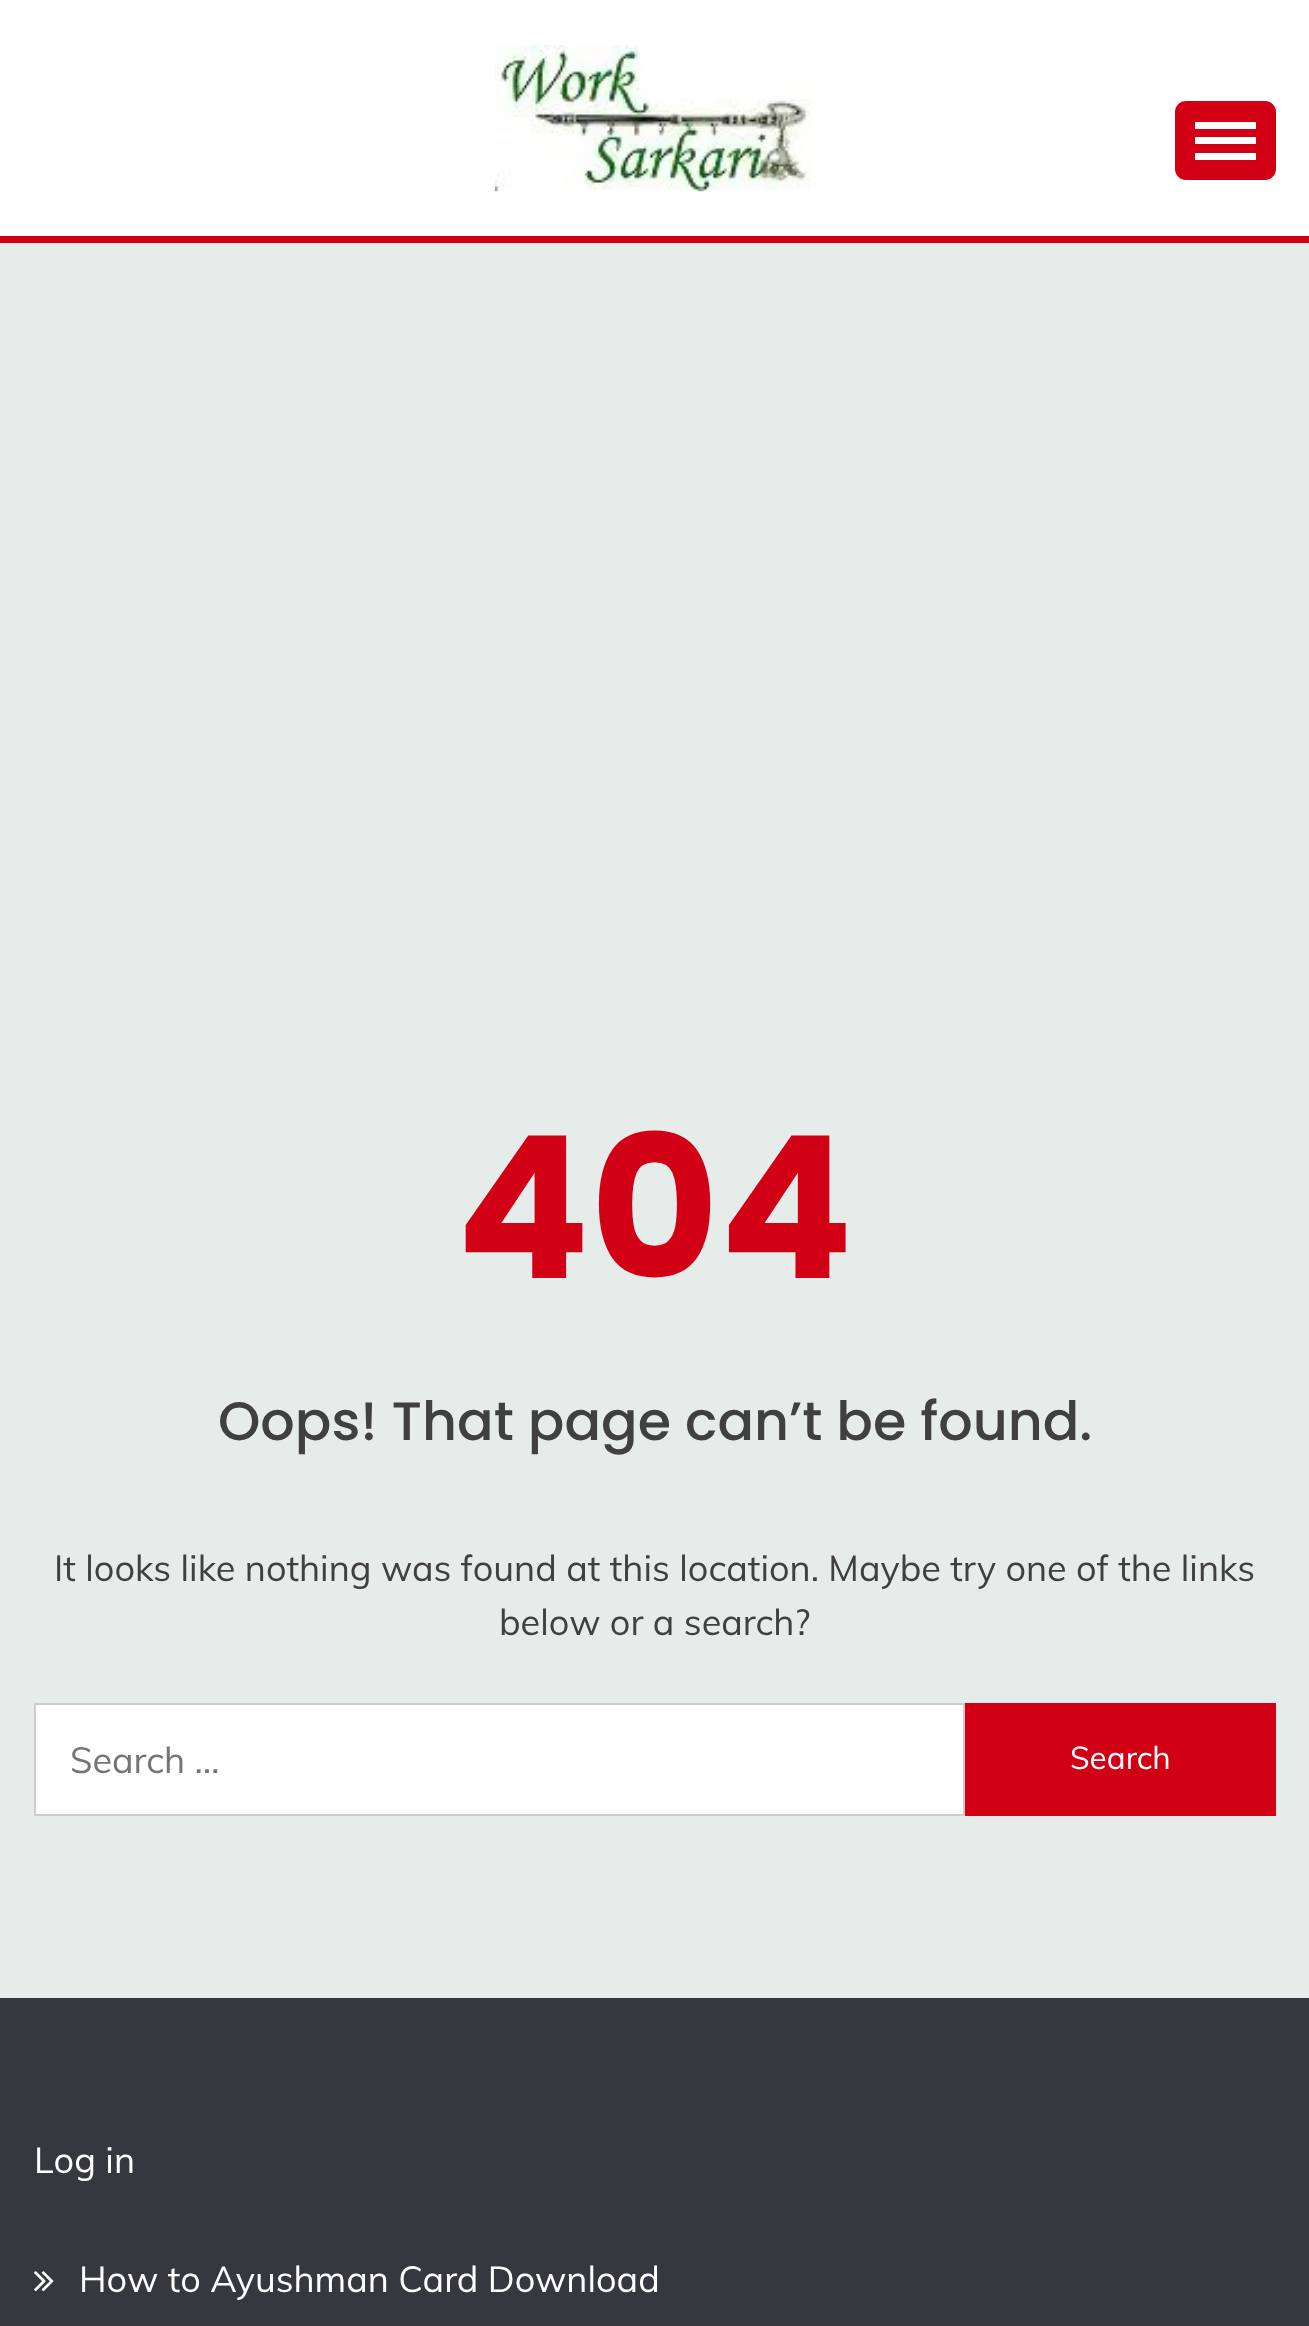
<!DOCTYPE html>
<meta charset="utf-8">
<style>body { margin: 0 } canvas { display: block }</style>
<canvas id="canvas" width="1309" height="2326"></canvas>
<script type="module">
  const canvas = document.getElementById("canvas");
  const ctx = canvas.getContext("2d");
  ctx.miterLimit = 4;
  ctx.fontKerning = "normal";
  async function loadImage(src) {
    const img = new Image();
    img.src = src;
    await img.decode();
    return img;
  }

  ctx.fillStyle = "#e5ece9";
  ctx.fillRect(0, 0, 1309, 2326);
  ctx.fillStyle = "#ffffff";
  ctx.fillRect(0, 0, 1309, 236);
  ctx.drawImage(await loadImage("img1.png"), 495, 45, 320, 147);
  ctx.fillStyle = "#d10014";
  ctx.beginPath();
  ctx.roundRect(1175, 101, 101, 79, 11);
  ctx.fill();
  ctx.fillStyle = "#ffffff";
  ctx.fillRect(1195, 122, 61, 7);
  ctx.fillRect(1195, 137, 61, 7);
  ctx.fillRect(1195, 153, 61, 7);
  ctx.fillStyle = "#d10014";
  ctx.fillRect(0, 236, 1309, 7);
  ctx.font = "bold 198px Poppins";
  ctx.fillText("404", 456, 1278);
  ctx.font = "500 54px Poppins";
  ctx.fillStyle = "#404040";
  ctx.fillText("Oops! That page can’t be found.", 218, 1440);
  ctx.font = "36px Muli";
  ctx.fillText("It looks like nothing was found at this location. Maybe try one of the links", 54, 1581);
  ctx.fillText("below or a search?", 499, 1635);
  ctx.fillStyle = "#ffffff";
  ctx.beginPath();
  ctx.rect(35, 1704, 929, 111);
  ctx.fill();
  ctx.strokeStyle = "#cccccc";
  ctx.lineWidth = 2;
  ctx.stroke();
  ctx.fillStyle = "#757575";
  ctx.fillText("Search …", 70, 1773);
  ctx.fillStyle = "#d10014";
  ctx.fillRect(965, 1703, 311, 113);
  ctx.font = "31.5px Muli";
  ctx.fillStyle = "#ffffff";
  ctx.fillText("Search", 1070, 1769);
  ctx.fillStyle = "#37373f";
  ctx.fillRect(0, 1998, 1309, 328);
  ctx.font = "36px Muli";
  ctx.fillStyle = "#ffffff";
  ctx.fillText("Log in", 34, 2173);
  ctx.drawImage(await loadImage("img2.png"), 34, 2271, 20, 21);
  ctx.fillText("How to Ayushman Card Download", 79, 2292);
</script>
